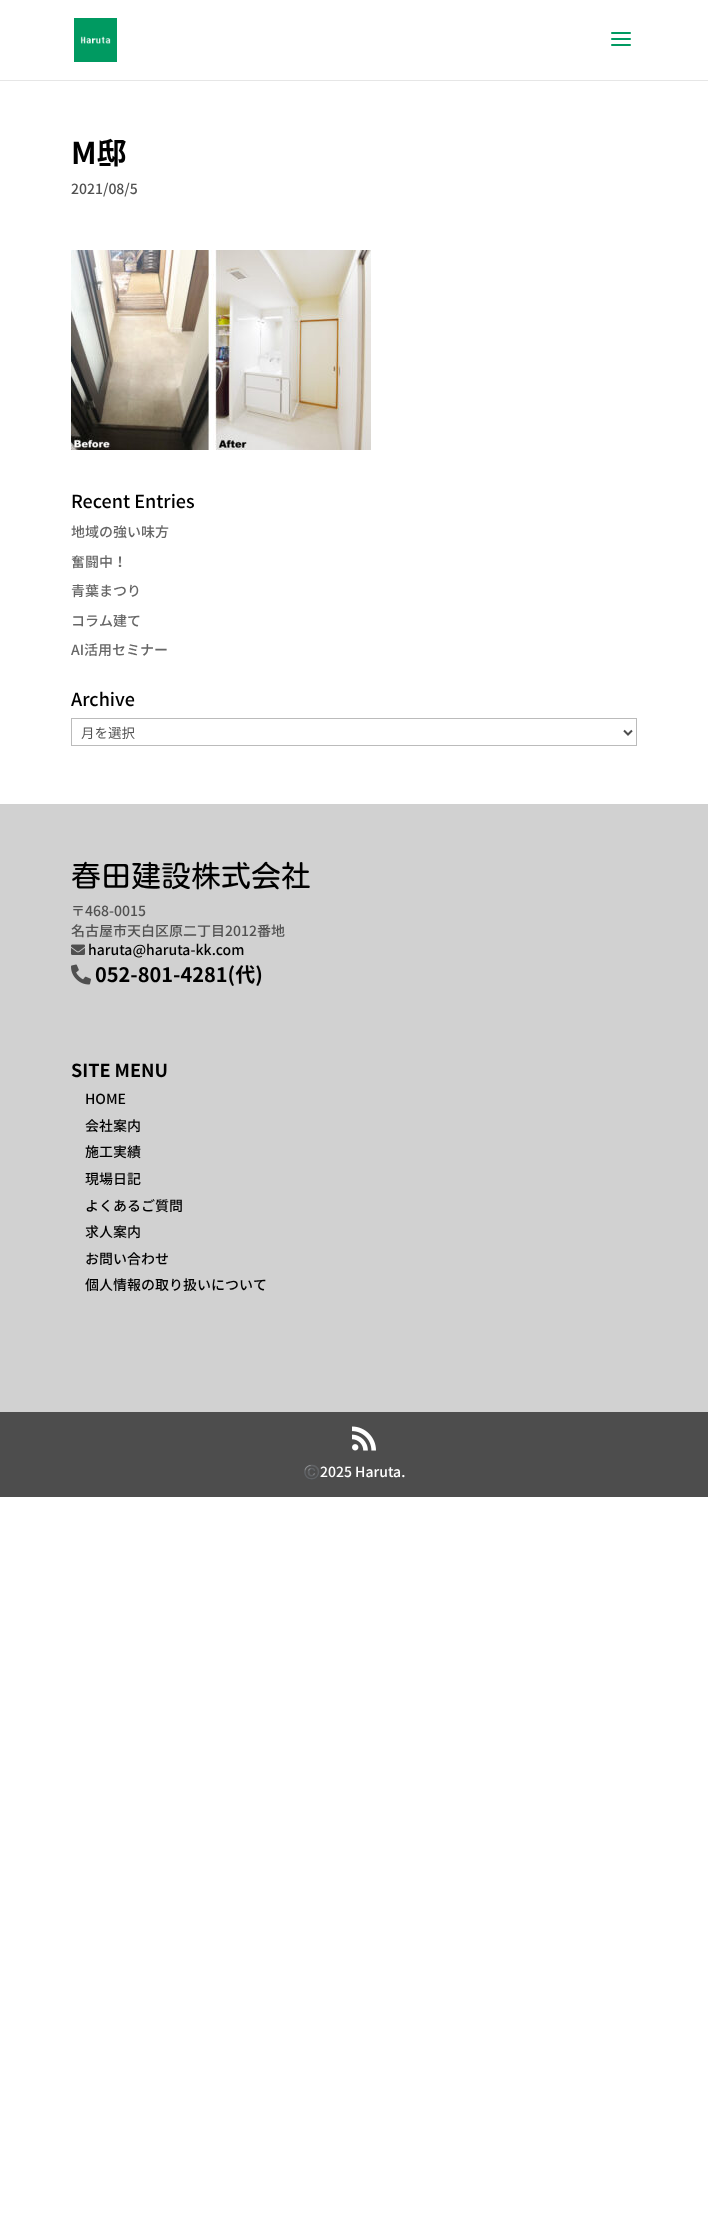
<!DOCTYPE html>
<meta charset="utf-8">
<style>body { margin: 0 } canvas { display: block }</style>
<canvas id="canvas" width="708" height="2220"></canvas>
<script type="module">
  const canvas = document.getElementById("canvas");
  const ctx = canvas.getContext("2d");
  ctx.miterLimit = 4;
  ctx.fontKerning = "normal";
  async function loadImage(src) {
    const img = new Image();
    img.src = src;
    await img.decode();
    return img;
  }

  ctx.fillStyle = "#ffffff";
  ctx.fillRect(0, 0, 708, 2220);
  ctx.fillStyle = "#e6e6e6";
  ctx.fillRect(0, 80, 708, 1);
  ctx.drawImage(await loadImage("img1.png"), 74, 18, 43, 44);
  ctx.drawImage(await loadImage("img2.png"), 611, 32, 20, 14);
  ctx.font = "bold 30px Noto Sans JP";
  ctx.fillStyle = "#000000";
  ctx.fillText("M邸", 71, 164);
  ctx.font = "500 14px Noto Sans JP";
  ctx.fillStyle = "#515151";
  ctx.fillText("2021/08/5", 71, 194);
  ctx.drawImage(await loadImage("img3.png"), 71, 250, 300, 200);
  ctx.font = "500 18px Noto Sans JP";
  ctx.fillStyle = "#000000";
  ctx.fillText("Recent Entries", 71, 508);
  ctx.font = "500 14px Noto Sans JP";
  ctx.fillStyle = "#666666";
  ctx.fillText("地域の強い味方", 71, 537);
  ctx.fillText("奮闘中！", 71, 567);
  ctx.fillText("青葉まつり", 71, 596);
  ctx.fillText("コラム建て", 71, 626);
  ctx.fillText("AI活用セミナー", 71, 655);
  ctx.font = "500 18px Noto Sans JP";
  ctx.fillStyle = "#000000";
  ctx.fillText("Archive", 71, 706);
  ctx.strokeStyle = "#bbbbbb";
  ctx.strokeRect(71.5, 718.5, 565, 27);
  ctx.beginPath();
  ctx.moveTo(624, 730.5);
  ctx.lineTo(628, 734.5);
  ctx.lineTo(632, 730.5);
  ctx.strokeStyle = "#4e4e4e";
  ctx.lineWidth = 2;
  ctx.stroke();
  ctx.font = "13.5px Noto Sans JP";
  ctx.fillStyle = "#515151";
  ctx.fillText("月を選択", 81, 738);
  ctx.fillStyle = "#d1d1d1";
  ctx.fillRect(0, 804, 708, 608);
  ctx.font = "30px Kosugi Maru";
  ctx.fillStyle = "#000000";
  ctx.fillText("春田建設株式会社", 71, 887);
  ctx.font = "500 14px Noto Sans JP";
  ctx.fillStyle = "#515151";
  ctx.fillText("〒468-0015", 71, 916);
  ctx.fillText("名古屋市天白区原二丁目2012番地", 71, 936);
  ctx.drawImage(await loadImage("img4.png"), 71, 944, 14, 11);
  ctx.fillStyle = "#000000";
  ctx.fillText("haruta@haruta-kk.com", 88, 955);
  ctx.drawImage(await loadImage("img5.png"), 71, 964, 20, 21);
  ctx.font = "bold 20px Noto Sans JP";
  ctx.fillText("052-801-4281(代)", 95, 982);
  ctx.font = "bold 18px Noto Sans JP";
  ctx.fillText("SITE MENU", 71, 1077);
  ctx.font = "500 14px Noto Sans JP";
  ctx.fillText("HOME", 85, 1104);
  ctx.fillText("会社案内", 85, 1131);
  ctx.fillText("施工実績", 85, 1157);
  ctx.fillText("現場日記", 85, 1184);
  ctx.fillText("よくあるご質問", 85, 1211);
  ctx.fillText("求人案内", 85, 1237);
  ctx.fillText("お問い合わせ", 85, 1264);
  ctx.fillText("個人情報の取り扱いについて", 85, 1290);
  ctx.fillStyle = "#4d4d4d";
  ctx.fillRect(0, 1412, 708, 85);
  ctx.drawImage(await loadImage("img6.png"), 352, 1426, 24, 25);
  ctx.font = "14px Noto Color Emoji";
  ctx.fillStyle = "#ffffff";
  ctx.fillText("©️", 303, 1477);
  ctx.font = "500 14px Noto Sans JP";
  ctx.fillText("2025 Haruta.", 320, 1477);
</script>
